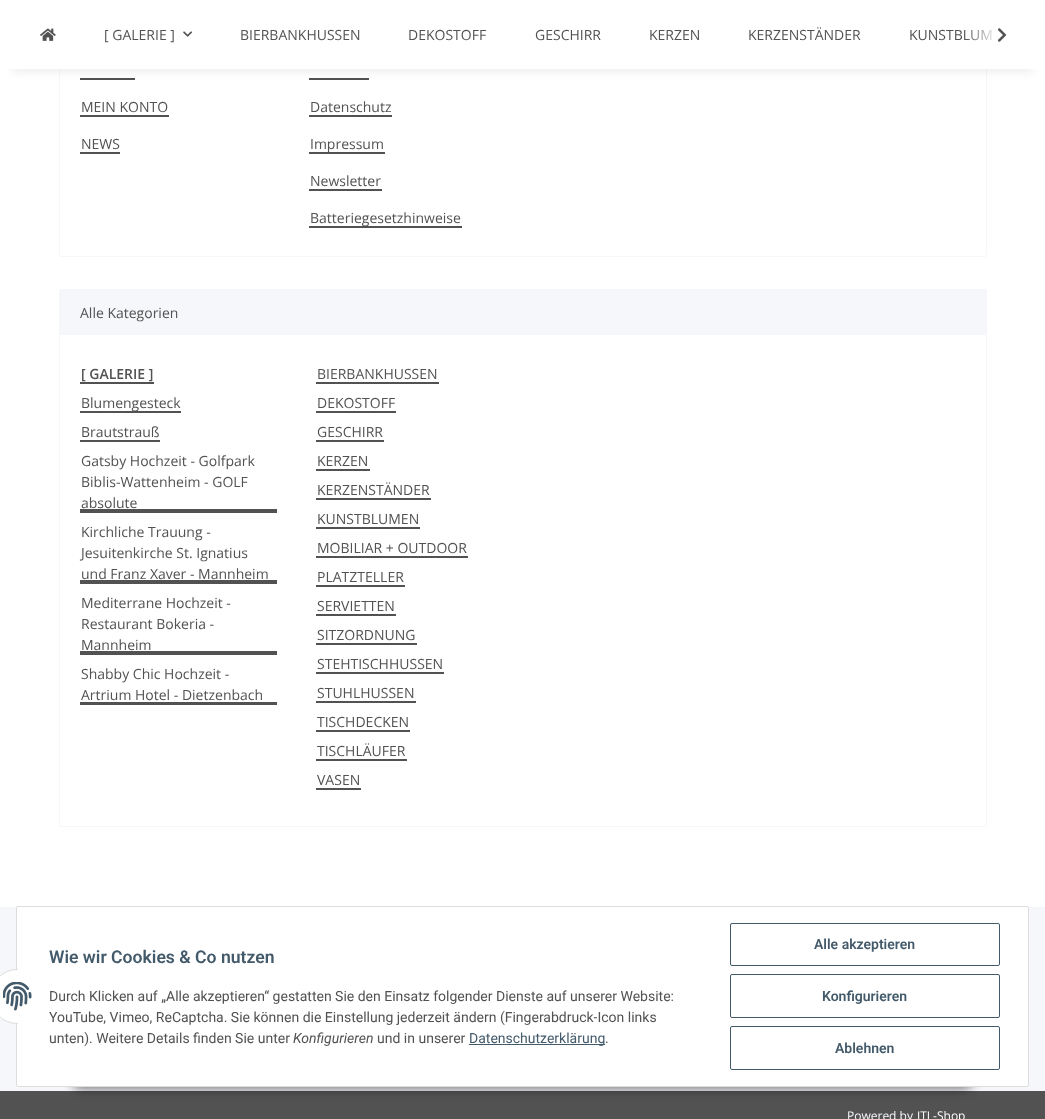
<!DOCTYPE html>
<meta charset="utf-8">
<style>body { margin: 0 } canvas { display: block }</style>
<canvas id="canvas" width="1045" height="1119"></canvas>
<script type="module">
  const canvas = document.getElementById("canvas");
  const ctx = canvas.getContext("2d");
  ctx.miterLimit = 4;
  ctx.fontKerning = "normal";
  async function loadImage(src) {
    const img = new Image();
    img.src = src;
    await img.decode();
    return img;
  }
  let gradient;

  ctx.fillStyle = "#f5f7fa";
  ctx.fillRect(0, 0, 1045, 1119);
  ctx.fillStyle = "#ffffff";
  ctx.fillRect(0, 69, 1045, 838);
  ctx.beginPath();
  ctx.roundRect(59.5, -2.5, 927, 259, 1.5);
  ctx.strokeStyle = "#f5f7fa";
  ctx.stroke();
  ctx.fillStyle = "#525252";
  ctx.fillRect(80, 78, 55, 2);
  ctx.fillRect(309, 78, 60, 2);
  ctx.fillStyle = "rgba(0, 0, 0, 0.06)";
  ctx.filter = "blur(4.5px)";
  ctx.beginPath();
  ctx.rect(12, 28, 1021, 45);
  ctx.fill();
  ctx.filter = "none";
  ctx.fillStyle = "#ffffff";
  ctx.fillRect(0, 0, 1045, 69);
  ctx.drawImage(await loadImage("img1.png"), 40, 28, 16, 13);
  ctx.font = "14px Open Sans";
  ctx.fillStyle = "#525252";
  ctx.fillText("[ GALERIE ]", 104, 40);
  ctx.drawImage(await loadImage("img2.png"), 183, 31, 9, 6);
  ctx.fillText("BIERBANKHUSSEN", 240, 40);
  ctx.fillText("DEKOSTOFF", 408, 40);
  ctx.fillText("GESCHIRR", 535, 40);
  ctx.fillText("KERZEN", 649, 40);
  ctx.fillText("KERZENSTÄNDER", 748, 40);
  ctx.fillText("KUNSTBLUM", 909, 40);
  gradient = ctx.createLinearGradient(965, 35, 1013, 35);
  gradient.addColorStop(0, "rgba(255, 255, 255, 0.01)");
  gradient.addColorStop(0.7, "#ffffff");
  ctx.fillStyle = gradient;
  ctx.fillRect(965, 30, 27, 11);
  ctx.drawImage(await loadImage("img3.png"), 997, 28, 10, 14);
  ctx.fillStyle = "#525252";
  ctx.fillText("MEIN KONTO", 81, 112);
  ctx.fillRect(80, 115, 89, 2);
  ctx.fillText("NEWS", 81, 149);
  ctx.fillRect(80, 152, 40, 2);
  ctx.fillText("Datenschutz", 310, 112);
  ctx.fillRect(309, 115, 83, 2);
  ctx.fillText("Impressum", 310, 149);
  ctx.fillRect(309, 152, 76, 2);
  ctx.fillText("Newsletter", 310, 186);
  ctx.fillRect(309, 189, 73, 2);
  ctx.fillText("Batteriegesetzhinweise", 310, 223);
  ctx.fillRect(309, 226, 153, 2);
  ctx.beginPath();
  ctx.roundRect(59.5, 289.5, 927, 537, 1.5);
  ctx.stroke();
  ctx.fillStyle = "#f5f7fa";
  ctx.beginPath();
  ctx.roundRect(60, 290, 926, 45, [1, 1, 0, 0]);
  ctx.fill();
  ctx.fillStyle = "#525252";
  ctx.fillText("Alle Kategorien", 80, 318);
  ctx.font = "600 14px Open Sans";
  ctx.fillText("[ GALERIE ]", 81, 379);
  ctx.fillRect(80, 382, 74, 2);
  ctx.font = "14px Open Sans";
  ctx.fillText("Blumengesteck", 81, 408);
  ctx.fillRect(80, 411, 101, 2);
  ctx.fillText("Brautstrauß", 81, 437);
  ctx.fillRect(80, 440, 80, 2);
  ctx.fillText("Gatsby Hochzeit - Golfpark", 81, 466);
  ctx.fillText("Biblis-Wattenheim - GOLF", 81, 487);
  ctx.fillText("absolute", 81, 508);
  ctx.fillRect(80, 509, 197, 4);
  ctx.fillText("Kirchliche Trauung -", 81, 537);
  ctx.fillText("Jesuitenkirche St. Ignatius", 81, 558);
  ctx.fillText("und Franz Xaver - Mannheim", 81, 579);
  ctx.fillRect(80, 580, 197, 4);
  ctx.fillText("Mediterrane Hochzeit -", 81, 608);
  ctx.fillText("Restaurant Bokeria -", 81, 629);
  ctx.fillText("Mannheim", 81, 650);
  ctx.fillRect(80, 651, 197, 4);
  ctx.fillText("Shabby Chic Hochzeit -", 81, 679);
  ctx.fillText("Artrium Hotel - Dietzenbach", 81, 700);
  ctx.fillRect(80, 702, 197, 3);
  ctx.fillText("BIERBANKHUSSEN", 317, 379);
  ctx.fillRect(316, 382, 123, 2);
  ctx.fillText("DEKOSTOFF", 317, 408);
  ctx.fillRect(316, 411, 80, 2);
  ctx.fillText("GESCHIRR", 317, 437);
  ctx.fillRect(316, 440, 68, 2);
  ctx.fillText("KERZEN", 317, 466);
  ctx.fillRect(316, 469, 54, 2);
  ctx.fillText("KERZENSTÄNDER", 317, 495);
  ctx.fillRect(316, 498, 115, 2);
  ctx.fillText("KUNSTBLUMEN", 317, 524);
  ctx.fillRect(316, 527, 104, 2);
  ctx.fillText("MOBILIAR + OUTDOOR", 317, 553);
  ctx.fillRect(316, 556, 152, 2);
  ctx.fillText("PLATZTELLER", 317, 582);
  ctx.fillRect(316, 585, 89, 2);
  ctx.fillText("SERVIETTEN", 317, 611);
  ctx.fillRect(316, 614, 80, 2);
  ctx.fillText("SITZORDNUNG", 317, 640);
  ctx.fillRect(316, 643, 101, 2);
  ctx.fillText("STEHTISCHHUSSEN", 317, 669);
  ctx.fillRect(316, 672, 128, 2);
  ctx.fillText("STUHLHUSSEN", 317, 698);
  ctx.fillRect(316, 701, 100, 2);
  ctx.fillText("TISCHDECKEN", 317, 727);
  ctx.fillRect(316, 730, 94, 2);
  ctx.fillText("TISCHLÄUFER", 317, 756);
  ctx.fillRect(316, 759, 91, 2);
  ctx.fillText("VASEN", 317, 785);
  ctx.fillRect(316, 788, 45, 2);
  ctx.fillRect(0, 1091, 1045, 28);
  ctx.fillStyle = "rgba(0, 0, 0, 0.45)";
  ctx.filter = "blur(5px)";
  ctx.beginPath();
  ctx.roundRect(68, 1058, 909, 32, 16);
  ctx.fill();
  ctx.filter = "none";
  ctx.fillStyle = "#ffffff";
  ctx.beginPath();
  ctx.roundRect(16.5, 906.5, 1012, 180, 1.5);
  ctx.fill();
  ctx.strokeStyle = "#dddddd";
  ctx.stroke();
  ctx.beginPath();
  ctx.arc(17.5, 996.5, 27, 0, Math.PI * 2);
  ctx.fill();
  ctx.stroke();
  ctx.fillRect(18, 969, 27, 55);
  ctx.drawImage(await loadImage("img4.png"), 3, 982, 29, 29);
  ctx.font = "600 17.6px Roboto";
  ctx.fillStyle = "#435a6b";
  ctx.fillText("Wie wir Cookies & Co nutzen", 49, 963);
  ctx.font = "14px Roboto";
  ctx.fillStyle = "#525252";
  ctx.fillText("Durch Klicken auf „Alle akzeptieren“ gestatten Sie den Einsatz folgender Dienste auf unserer Website:", 49, 1001);
  ctx.fillText("YouTube, Vimeo, ReCaptcha. Sie können die Einstellung jederzeit ändern (Fingerabdruck-Icon links", 49, 1022);
  ctx.fillText("unten). Weitere Details finden Sie unter", 49, 1043);
  ctx.font = "italic 14px Roboto";
  ctx.fillText("Konfigurieren", 293, 1043);
  ctx.font = "14px Roboto";
  ctx.fillText("und in unserer", 377, 1043);
  ctx.fillStyle = "#435a6b";
  ctx.fillRect(469, 1044, 136, 1);
  ctx.fillText("Datenschutzerklärung", 469, 1043);
  ctx.fillStyle = "#525252";
  ctx.fillText(".", 605, 1043);
  ctx.beginPath();
  ctx.roundRect(730.5, 923.5, 269, 42, 1.5);
  ctx.strokeStyle = "#435a6b";
  ctx.stroke();
  ctx.font = "600 14px Roboto";
  ctx.fillStyle = "#435a6b";
  ctx.fillText("Alle akzeptieren", 814, 949);
  ctx.beginPath();
  ctx.roundRect(730.5, 974.5, 269, 43, 1.5);
  ctx.stroke();
  ctx.fillText("Konfigurieren", 822, 1001);
  ctx.beginPath();
  ctx.roundRect(730.5, 1026.5, 269, 43, 1.5);
  ctx.stroke();
  ctx.fillText("Ablehnen", 835, 1053);
  ctx.font = "12px Open Sans";
  ctx.fillStyle = "#f5f7fa";
  ctx.fillText("Powered by", 847, 1120);
  ctx.fillStyle = "#ffffff";
  ctx.fillText("JTL-Shop", 917, 1120);
</script>
